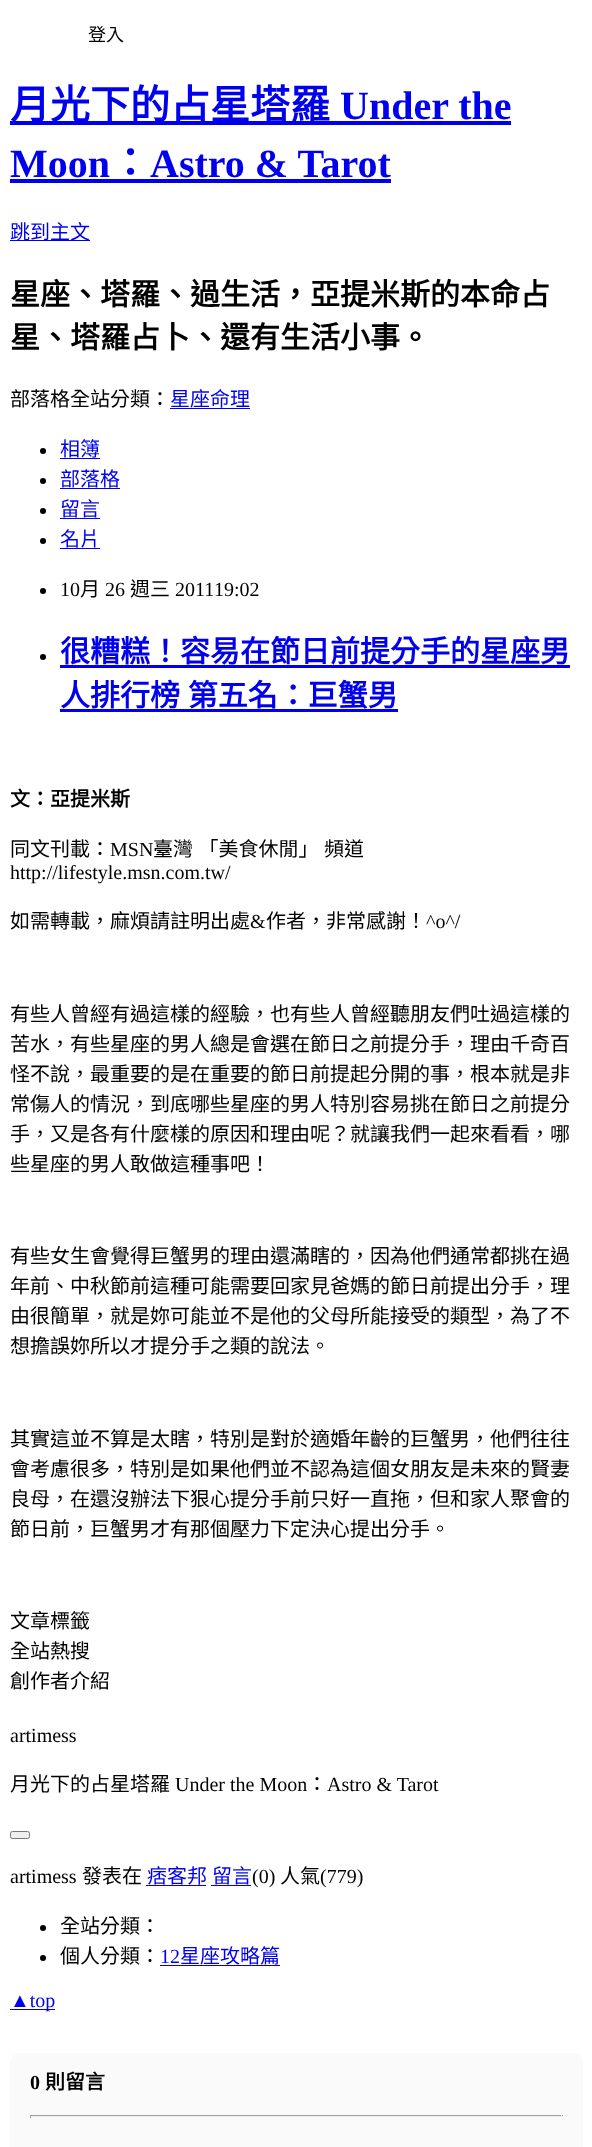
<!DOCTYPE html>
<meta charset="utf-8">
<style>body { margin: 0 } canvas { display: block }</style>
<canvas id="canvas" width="592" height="2147"></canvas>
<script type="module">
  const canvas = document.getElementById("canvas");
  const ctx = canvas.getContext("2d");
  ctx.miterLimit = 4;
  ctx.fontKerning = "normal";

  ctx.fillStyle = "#ffffff";
  ctx.fillRect(0, 0, 592, 2147);
  ctx.font = "18px Noto Sans CJK TC";
  ctx.fillStyle = "#000000";
  ctx.fillText("登入", 88, 41);
  ctx.fillStyle = "#0000ee";
  ctx.fillRect(10, 121, 501, 4);
  ctx.font = "bold 40px Noto Sans CJK TC";
  ctx.fillText("月光下的占星塔羅", 10, 119);
  ctx.font = "bold 40px Liberation Serif";
  ctx.fillText("Under the", 340, 119);
  ctx.fillText("Moon", 10, 177);
  ctx.fillRect(10, 179, 381, 4);
  ctx.font = "bold 40px Noto Sans CJK TC";
  ctx.fillText("：", 110, 177);
  ctx.font = "bold 40px Liberation Serif";
  ctx.fillText("Astro & Tarot", 150, 177);
  ctx.fillRect(10, 240, 80, 1);
  ctx.font = "20px Noto Sans CJK TC";
  ctx.fillText("跳到主文", 10, 239);
  ctx.font = "bold 30px Noto Sans CJK TC";
  ctx.fillStyle = "#000000";
  ctx.fillText("星座、塔羅、過生活，亞提米斯的本命占", 10, 305);
  ctx.fillText("星、塔羅占卜、還有生活小事。", 10, 348);
  ctx.font = "20px Noto Sans CJK TC";
  ctx.fillText("部落格全站分類：", 10, 406);
  ctx.fillStyle = "#0000ee";
  ctx.fillText("星座命理", 170, 406);
  ctx.fillRect(170, 408, 80, 1);
  ctx.fillStyle = "#000000";
  ctx.beginPath();
  ctx.arc(43, 451, 3, 0, Math.PI * 2);
  ctx.fill();
  ctx.fillStyle = "#0000ee";
  ctx.fillText("相簿", 60, 456);
  ctx.fillRect(60, 458, 40, 1);
  ctx.fillStyle = "#000000";
  ctx.beginPath();
  ctx.arc(43, 481, 3, 0, Math.PI * 2);
  ctx.fill();
  ctx.fillStyle = "#0000ee";
  ctx.fillText("部落格", 60, 486);
  ctx.fillRect(60, 488, 60, 1);
  ctx.fillStyle = "#000000";
  ctx.beginPath();
  ctx.arc(43, 511, 3, 0, Math.PI * 2);
  ctx.fill();
  ctx.fillStyle = "#0000ee";
  ctx.fillText("留言", 60, 516);
  ctx.fillRect(60, 518, 40, 1);
  ctx.fillStyle = "#000000";
  ctx.beginPath();
  ctx.arc(43, 541, 3, 0, Math.PI * 2);
  ctx.fill();
  ctx.fillStyle = "#0000ee";
  ctx.fillText("名片", 60, 546);
  ctx.fillRect(60, 548, 40, 1);
  ctx.fillStyle = "#000000";
  ctx.beginPath();
  ctx.arc(43, 591, 3, 0, Math.PI * 2);
  ctx.fill();
  ctx.font = "20px Liberation Serif";
  ctx.fillText("10", 60, 596);
  ctx.font = "20px Noto Sans CJK TC";
  ctx.fillText("月", 80, 596);
  ctx.font = "20px Liberation Serif";
  ctx.fillText("26", 105, 596);
  ctx.font = "20px Noto Sans CJK TC";
  ctx.fillText("週三", 130, 596);
  ctx.font = "20px Liberation Serif";
  ctx.fillText("2011", 175, 596);
  ctx.fillText("19:02", 214, 596);
  ctx.beginPath();
  ctx.arc(43, 657, 3, 0, Math.PI * 2);
  ctx.fill();
  ctx.font = "bold 30px Noto Sans CJK TC";
  ctx.fillStyle = "#0000ee";
  ctx.fillText("很糟糕！容易在節日前提分手的星座男", 60, 662);
  ctx.fillRect(60, 665, 510, 3);
  ctx.wordSpacing = "1px";
  ctx.fillText("人排行榜 第五名：巨蟹男", 60, 706);
  ctx.fillRect(60, 709, 338, 3);
  ctx.wordSpacing = "0px";
  ctx.font = "bold 20px Noto Sans CJK TC";
  ctx.fillStyle = "#000000";
  ctx.fillText("文：亞提米斯", 10, 806);
  ctx.font = "20px Noto Sans CJK TC";
  ctx.fillText("同文刊載：", 10, 856);
  ctx.font = "20px Liberation Serif";
  ctx.fillText("MSN", 110, 856);
  ctx.wordSpacing = "1px";
  ctx.font = "20px Noto Sans CJK TC";
  ctx.fillText("臺灣 「美食休閒」 頻道", 153, 856);
  ctx.wordSpacing = "0px";
  ctx.font = "20px Liberation Serif";
  ctx.fillText("http://lifestyle.msn.com.tw/", 10, 879);
  ctx.font = "20px Noto Sans CJK TC";
  ctx.fillText("如需轉載，麻煩請註明出處", 10, 928);
  ctx.font = "20px Liberation Serif";
  ctx.fillText("&", 250, 928);
  ctx.font = "20px Noto Sans CJK TC";
  ctx.fillText("作者，非常感謝！", 266, 928);
  ctx.font = "20px Liberation Serif";
  ctx.fillText("^o^/", 426, 928);
  ctx.font = "20px Noto Sans CJK TC";
  ctx.fillText("有些人曾經有過這樣的經驗，也有些人曾經聽朋友們吐過這樣的", 10, 1021);
  ctx.fillText("苦水，有些星座的男人總是會選在節日之前提分手，理由千奇百", 10, 1051);
  ctx.fillText("怪不說，最重要的是在重要的節日前提起分開的事，根本就是非", 10, 1081);
  ctx.fillText("常傷人的情況，到底哪些星座的男人特別容易挑在節日之前提分", 10, 1111);
  ctx.fillText("手，又是各有什麼樣的原因和理由呢？就讓我們一起來看看，哪", 10, 1141);
  ctx.fillText("些星座的男人敢做這種事吧！", 10, 1171);
  ctx.fillText("有些女生會覺得巨蟹男的理由還滿瞎的，因為他們通常都挑在過", 10, 1263);
  ctx.fillText("年前、中秋節前這種可能需要回家見爸媽的節日前提出分手，理", 10, 1293);
  ctx.fillText("由很簡單，就是妳可能並不是他的父母所能接受的類型，為了不", 10, 1323);
  ctx.fillText("想擔誤妳所以才提分手之類的說法。", 10, 1353);
  ctx.fillText("其實這並不算是太瞎，特別是對於適婚年齡的巨蟹男，他們往往", 10, 1446);
  ctx.fillText("會考慮很多，特別是如果他們並不認為這個女朋友是未來的賢妻", 10, 1476);
  ctx.fillText("良母，在還沒辦法下狠心提分手前只好一直拖，但和家人聚會的", 10, 1506);
  ctx.fillText("節日前，巨蟹男才有那個壓力下定決心提出分手。", 10, 1536);
  ctx.fillText("文章標籤", 10, 1628);
  ctx.fillText("全站熱搜", 10, 1658);
  ctx.fillText("創作者介紹", 10, 1688);
  ctx.font = "20px Liberation Serif";
  ctx.fillText("artimess", 10, 1742);
  ctx.font = "20px Noto Sans CJK TC";
  ctx.fillText("月光下的占星塔羅", 10, 1791);
  ctx.font = "20px Liberation Serif";
  ctx.fillText("Under the Moon", 175, 1791);
  ctx.font = "20px Noto Sans CJK TC";
  ctx.fillText("：", 307, 1791);
  ctx.font = "20px Liberation Serif";
  ctx.fillText("Astro & Tarot", 327, 1791);
  ctx.fillStyle = "#efefef";
  ctx.beginPath();
  ctx.roundRect(10.5, 1831.5, 19, 7, 2);
  ctx.fill();
  ctx.strokeStyle = "#767676";
  ctx.stroke();
  ctx.fillStyle = "#000000";
  ctx.fillText("artimess", 10, 1883);
  ctx.font = "20px Noto Sans CJK TC";
  ctx.fillText("發表在", 82, 1883);
  ctx.fillStyle = "#0000ee";
  ctx.fillText("痞客邦", 147, 1883);
  ctx.fillRect(146, 1885, 60, 1);
  ctx.fillText("留言", 212, 1883);
  ctx.fillRect(211, 1885, 40, 1);
  ctx.font = "20px Liberation Serif";
  ctx.fillStyle = "#000000";
  ctx.fillText("(0)", 252, 1883);
  ctx.font = "20px Noto Sans CJK TC";
  ctx.fillText("人氣", 280, 1883);
  ctx.font = "20px Liberation Serif";
  ctx.fillText("(779)", 320, 1883);
  ctx.beginPath();
  ctx.arc(43, 1928, 3, 0, Math.PI * 2);
  ctx.fill();
  ctx.font = "20px Noto Sans CJK TC";
  ctx.fillText("全站分類：", 60, 1933);
  ctx.beginPath();
  ctx.arc(43, 1958, 3, 0, Math.PI * 2);
  ctx.fill();
  ctx.fillText("個人分類：", 60, 1963);
  ctx.font = "20px Liberation Serif";
  ctx.fillStyle = "#0000ee";
  ctx.fillText("12", 160, 1963);
  ctx.fillRect(160, 1965, 120, 1);
  ctx.font = "20px Noto Sans CJK TC";
  ctx.fillText("星座攻略篇", 180, 1963);
  ctx.fillRect(10, 2009, 45, 1);
  ctx.font = "20px Liberation Serif";
  ctx.fillText("▲top", 10, 2007);
  ctx.fillStyle = "#fafafa";
  ctx.beginPath();
  ctx.roundRect(10, 2053, 573, 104, 10);
  ctx.fill();
  ctx.font = "bold 20px Liberation Serif";
  ctx.fillStyle = "#000000";
  ctx.fillText("0", 30, 2089);
  ctx.font = "bold 20px Noto Sans CJK TC";
  ctx.fillText("則留言", 45, 2089);
  ctx.fillStyle = "#9f9f9f";
  ctx.fillRect(30, 2115, 533, 1);
  ctx.fillStyle = "#eeeeee";
  ctx.fillRect(561, 2115, 1, 3);
  ctx.fillRect(30, 2116, 533, 1);
  ctx.fillStyle = "#9f9f9f";
  ctx.fillRect(30, 2115, 1, 3);
</script>
